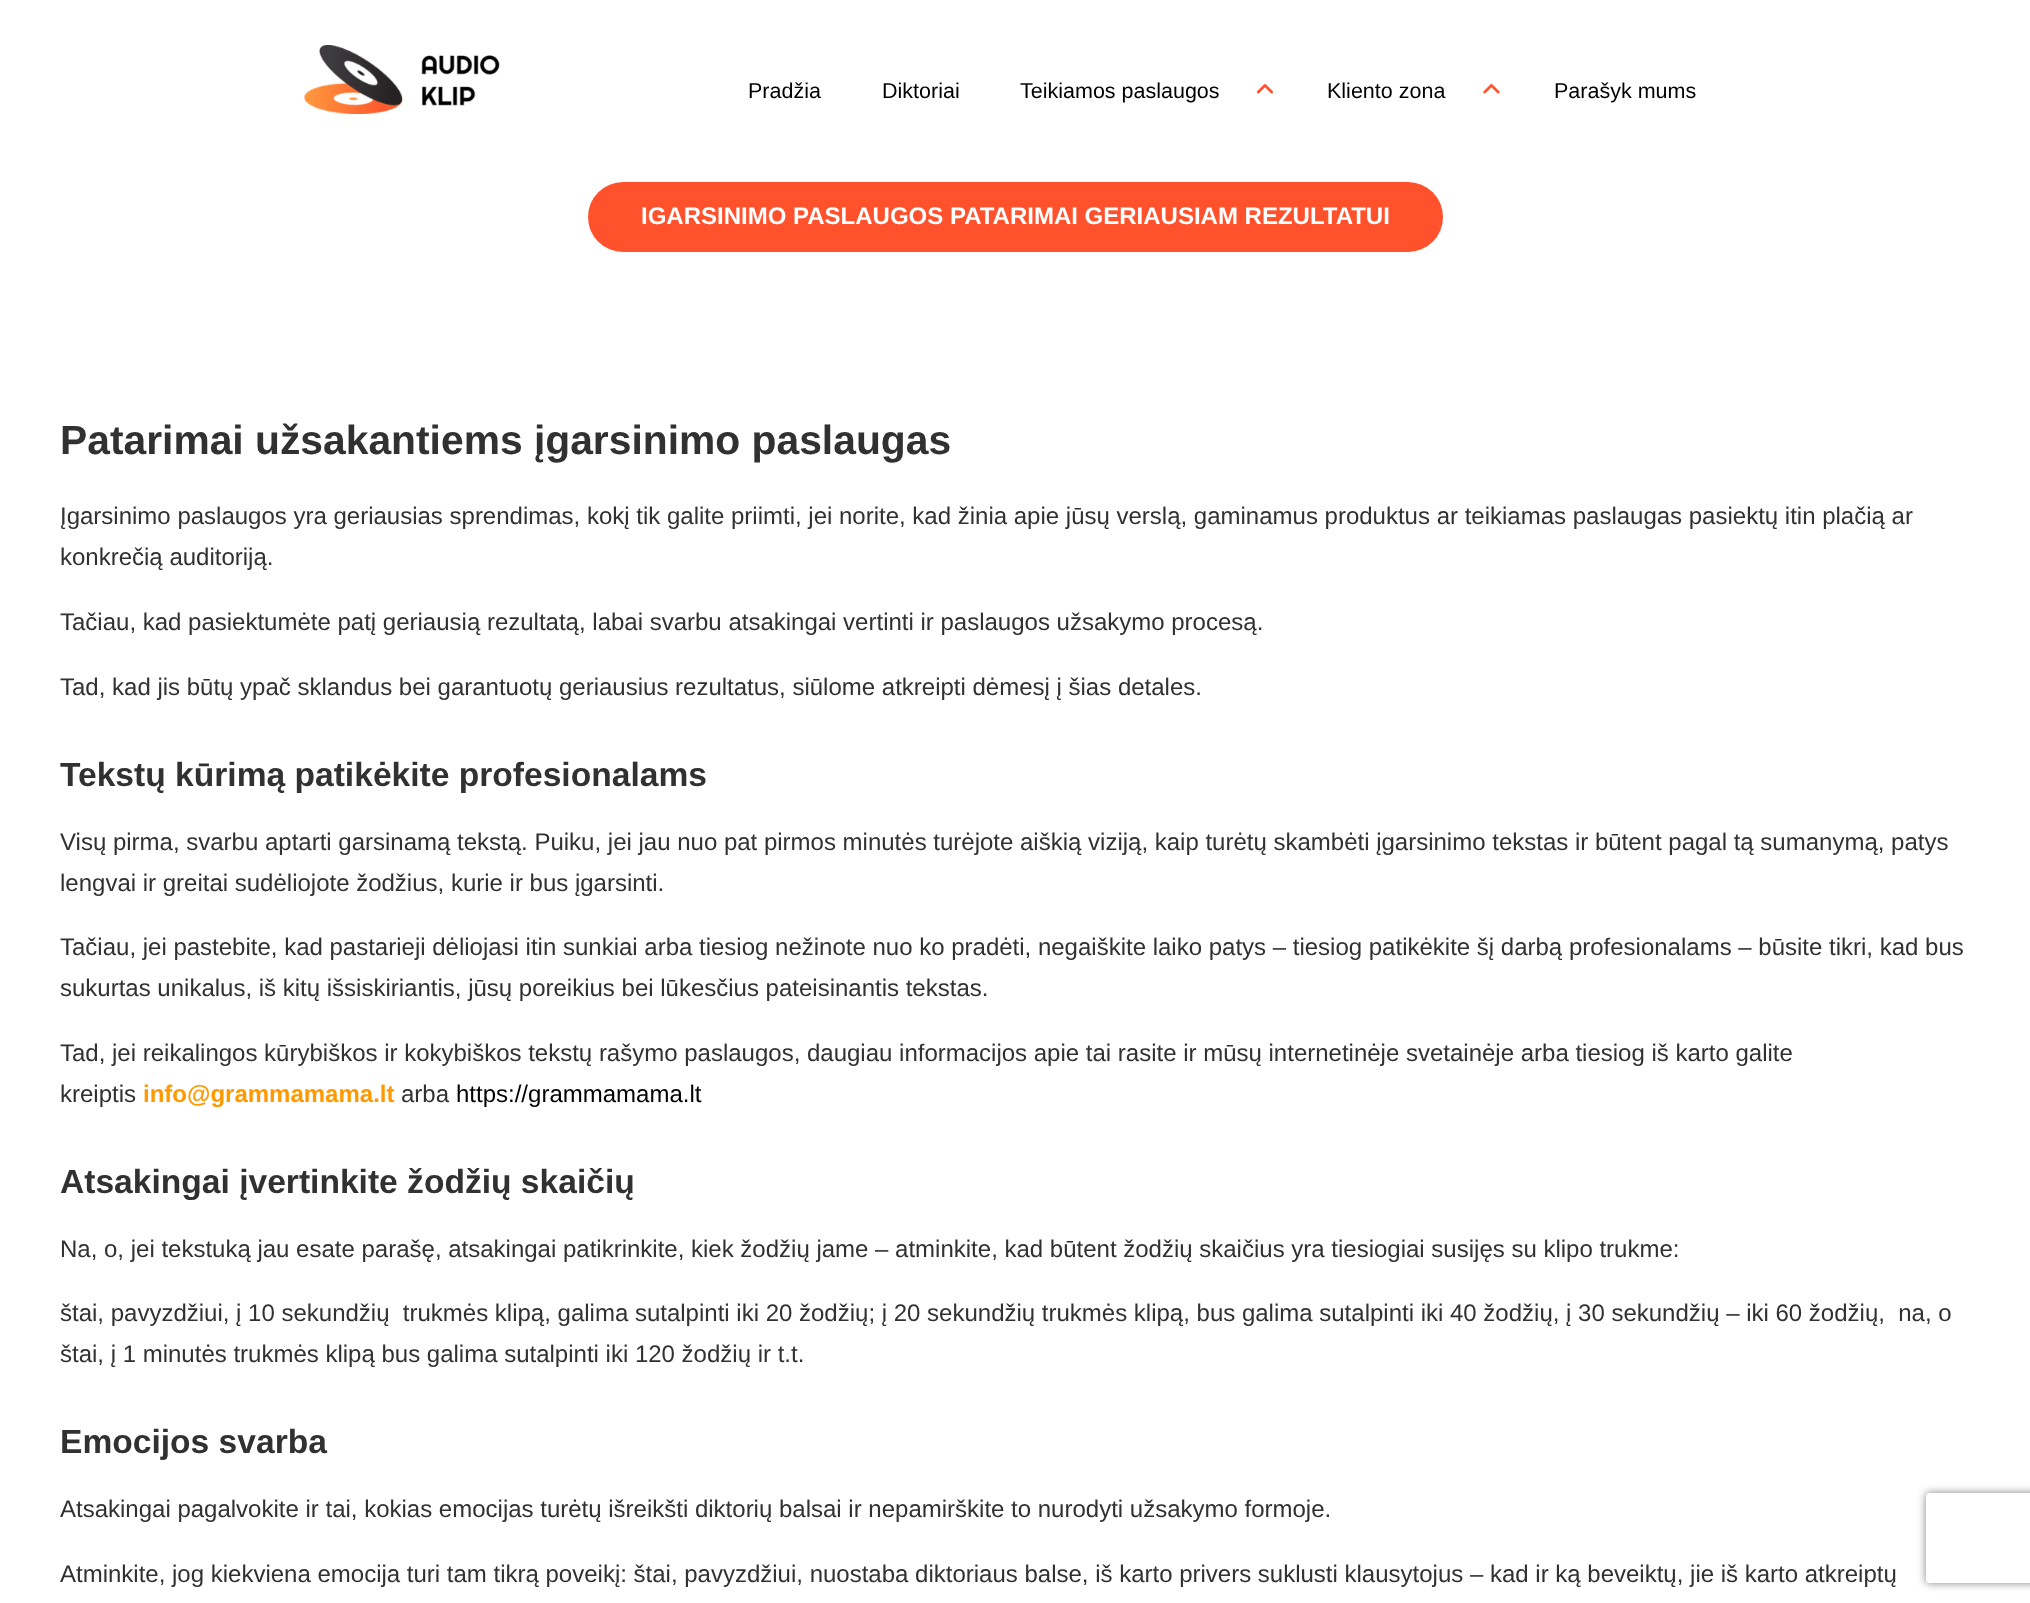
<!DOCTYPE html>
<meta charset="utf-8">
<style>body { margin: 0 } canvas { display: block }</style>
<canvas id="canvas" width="2030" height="1603"></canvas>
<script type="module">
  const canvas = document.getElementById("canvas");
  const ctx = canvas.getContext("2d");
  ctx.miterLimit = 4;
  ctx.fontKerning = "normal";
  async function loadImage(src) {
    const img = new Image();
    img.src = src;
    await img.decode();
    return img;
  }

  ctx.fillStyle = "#ffffff";
  ctx.fillRect(0, 0, 2030, 1603);
  ctx.drawImage(await loadImage("img1.png"), 304, 45, 196, 69);
  ctx.font = "21.5px Liberation Sans";
  ctx.fillStyle = "#000000";
  ctx.fillText("Pradžia", 748, 98);
  ctx.fillText("Diktoriai", 882, 98);
  ctx.fillText("Teikiamos paslaugos", 1020, 98);
  ctx.drawImage(await loadImage("img2.png"), 1256, 84, 17, 10);
  ctx.fillText("Kliento zona", 1327, 98);
  ctx.drawImage(await loadImage("img3.png"), 1483, 84, 17, 10);
  ctx.fillText("Parašyk mums", 1554, 98);
  ctx.fillStyle = "#ff512c";
  ctx.beginPath();
  ctx.roundRect(588, 182, 855, 70, 35);
  ctx.fill();
  ctx.font = "bold 24px Liberation Sans";
  ctx.fillStyle = "#ffffff";
  ctx.fillText("IGARSINIMO PASLAUGOS PATARIMAI GERIAUSIAM REZULTATUI", 641, 224);
  ctx.font = "bold 40.8px Liberation Sans";
  ctx.fillStyle = "#313131";
  ctx.fillText("Patarimai užsakantiems įgarsinimo paslaugas", 60, 454);
  ctx.font = "24px Liberation Sans";
  ctx.fillText("Įgarsinimo paslaugos yra geriausias sprendimas, kokį tik galite priimti, jei norite, kad žinia apie jūsų verslą, gaminamus produktus ar teikiamas paslaugas pasiektų itin plačią ar", 60, 524);
  ctx.fillText("konkrečią auditoriją.", 60, 565);
  ctx.fillText("Tačiau, kad pasiektumėte patį geriausią rezultatą, labai svarbu atsakingai vertinti ir paslaugos užsakymo procesą.", 60, 630);
  ctx.fillText("Tad, kad jis būtų ypač sklandus bei garantuotų geriausius rezultatus, siūlome atkreipti dėmesį į šias detales.", 60, 695);
  ctx.font = "bold 33.6px Liberation Sans";
  ctx.fillText("Tekstų kūrimą patikėkite profesionalams", 60, 786);
  ctx.font = "24px Liberation Sans";
  ctx.fillText("Visų pirma, svarbu aptarti garsinamą tekstą. Puiku, jei jau nuo pat pirmos minutės turėjote aiškią viziją, kaip turėtų skambėti įgarsinimo tekstas ir būtent pagal tą sumanymą, patys", 60, 850);
  ctx.fillText("lengvai ir greitai sudėliojote žodžius, kurie ir bus įgarsinti.", 60, 891);
  ctx.fillText("Tačiau, jei pastebite, kad pastarieji dėliojasi itin sunkiai arba tiesiog nežinote nuo ko pradėti, negaiškite laiko patys – tiesiog patikėkite šį darbą profesionalams – būsite tikri, kad bus", 60, 955);
  ctx.fillText("sukurtas unikalus, iš kitų išsiskiriantis, jūsų poreikius bei lūkesčius pateisinantis tekstas.", 60, 996);
  ctx.fillText("Tad, jei reikalingos kūrybiškos ir kokybiškos tekstų rašymo paslaugos, daugiau informacijos apie tai rasite ir mūsų internetinėje svetainėje arba tiesiog iš karto galite", 60, 1061);
  ctx.fillText("kreiptis", 60, 1102);
  ctx.font = "bold 24px Liberation Sans";
  ctx.fillStyle = "#ff9900";
  ctx.fillText("info@grammamama.lt", 143, 1102);
  ctx.font = "24px Liberation Sans";
  ctx.fillStyle = "#313131";
  ctx.fillText("arba", 401, 1102);
  ctx.fillStyle = "#000000";
  ctx.fillText("https://grammamama.lt", 456, 1102);
  ctx.font = "bold 33.6px Liberation Sans";
  ctx.fillStyle = "#313131";
  ctx.fillText("Atsakingai įvertinkite žodžių skaičių", 60, 1193);
  ctx.font = "24px Liberation Sans";
  ctx.fillText("Na, o, jei tekstuką jau esate parašę, atsakingai patikrinkite, kiek žodžių jame – atminkite, kad būtent žodžių skaičius yra tiesiogiai susijęs su klipo trukme:", 60, 1257);
  ctx.fillText("štai, pavyzdžiui, į 10 sekundžių  trukmės klipą, galima sutalpinti iki 20 žodžių; į 20 sekundžių trukmės klipą, bus galima sutalpinti iki 40 žodžių, į 30 sekundžių – iki 60 žodžių,  na, o", 60, 1321);
  ctx.fillText("štai, į 1 minutės trukmės klipą bus galima sutalpinti iki 120 žodžių ir t.t.", 60, 1362);
  ctx.font = "bold 33.6px Liberation Sans";
  ctx.fillText("Emocijos svarba", 60, 1453);
  ctx.font = "24px Liberation Sans";
  ctx.fillText("Atsakingai pagalvokite ir tai, kokias emocijas turėtų išreikšti diktorių balsai ir nepamirškite to nurodyti užsakymo formoje.", 60, 1517);
  ctx.fillText("Atminkite, jog kiekviena emocija turi tam tikrą poveikį: štai, pavyzdžiui, nuostaba diktoriaus balse, iš karto privers suklusti klausytojus – kad ir ką beveiktų, jie iš karto atkreiptų", 60, 1582);
  ctx.save();
  ctx.beginPath();
  ctx.moveTo(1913, 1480);
  ctx.lineTo(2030, 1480);
  ctx.lineTo(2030, 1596);
  ctx.lineTo(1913, 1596);
  ctx.closePath();
  ctx.moveTo(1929, 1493);
  ctx.lineTo(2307, 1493);
  ctx.bezierCurveTo(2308.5, 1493, 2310, 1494.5, 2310, 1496);
  ctx.lineTo(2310, 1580);
  ctx.bezierCurveTo(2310, 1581.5, 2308.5, 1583, 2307, 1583);
  ctx.lineTo(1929, 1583);
  ctx.bezierCurveTo(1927.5, 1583, 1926, 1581.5, 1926, 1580);
  ctx.lineTo(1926, 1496);
  ctx.bezierCurveTo(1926, 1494.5, 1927.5, 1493, 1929, 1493);
  ctx.closePath();
  ctx.clip("evenodd");
  ctx.fillStyle = "#808080";
  ctx.filter = "blur(4px)";
  ctx.beginPath();
  ctx.roundRect(1926, 1493, 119, 90, 3);
  ctx.fill();
  ctx.filter = "none";
  ctx.restore();
</script>
